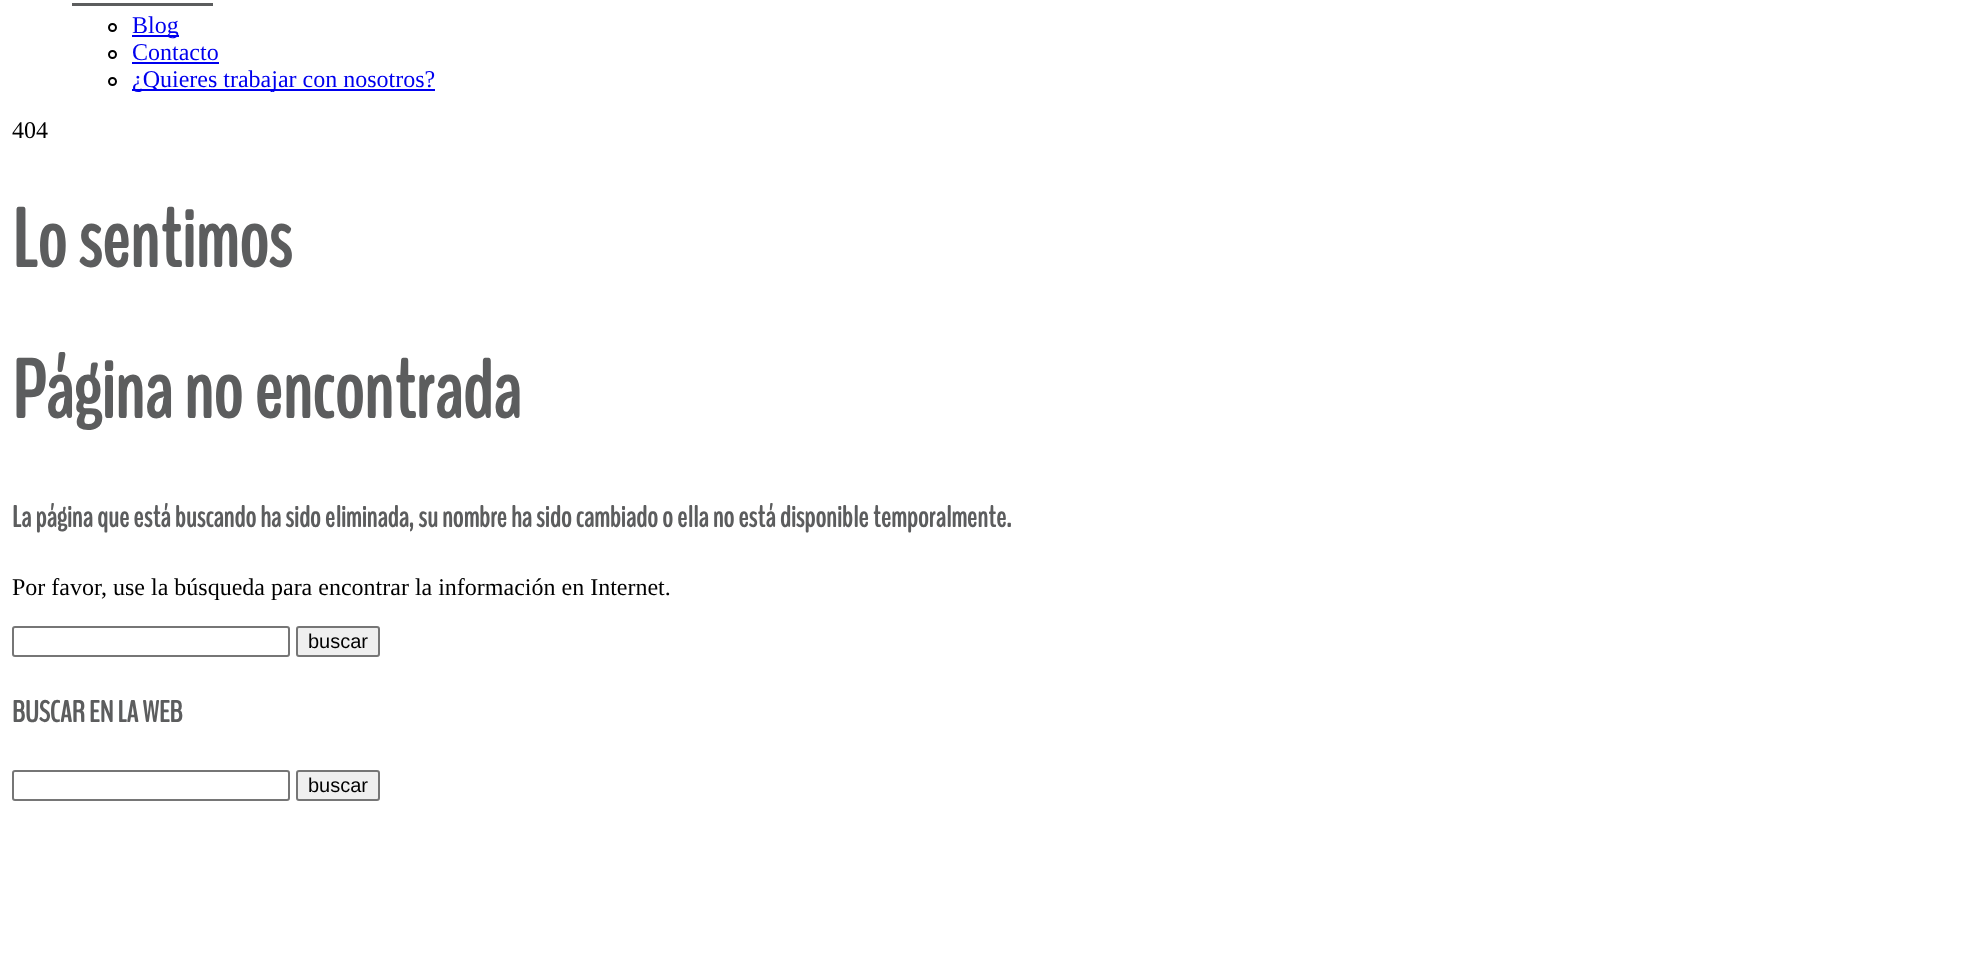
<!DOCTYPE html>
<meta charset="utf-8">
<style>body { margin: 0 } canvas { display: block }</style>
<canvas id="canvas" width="1980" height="964"></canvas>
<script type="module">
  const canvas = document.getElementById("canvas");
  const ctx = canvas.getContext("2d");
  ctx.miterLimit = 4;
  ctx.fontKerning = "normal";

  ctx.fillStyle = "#ffffff";
  ctx.fillRect(0, 0, 1980, 964);
  ctx.fillStyle = "#5c5d5e";
  ctx.fillRect(72, 3, 141, 3);
  ctx.beginPath();
  ctx.arc(112.5, 27.5, 3.5, 0, Math.PI * 2);
  ctx.strokeStyle = "#000000";
  ctx.lineWidth = 2;
  ctx.stroke();
  ctx.fillStyle = "#0000ee";
  ctx.fillRect(132, 35, 47, 2);
  ctx.font = "24px Liberation Serif";
  ctx.fillText("Blog", 132, 33);
  ctx.beginPath();
  ctx.arc(112.5, 54.5, 3.5, 0, Math.PI * 2);
  ctx.stroke();
  ctx.fillText("Contacto", 132, 60);
  ctx.fillRect(132, 62, 87, 2);
  ctx.beginPath();
  ctx.arc(112.5, 81.5, 3.5, 0, Math.PI * 2);
  ctx.stroke();
  ctx.fillRect(132, 89, 303, 2);
  ctx.fillText("¿Quieres trabajar con nosotros?", 132, 87);
  ctx.fillStyle = "#000000";
  ctx.fillText("404", 12, 138);
  ctx.font = "bold 82.5px BenchNine";
  ctx.fillStyle = "#5c5d5e";
  ctx.fillText("Lo sentimos", 12, 267);
  ctx.fillText("Página no encontrada", 12, 418);
  ctx.font = "bold 30px BenchNine";
  ctx.fillText("La página que está buscando ha sido eliminada, su nombre ha sido cambiado o ella no está disponible temporalmente.", 12, 527);
  ctx.font = "24px Liberation Serif";
  ctx.fillStyle = "#000000";
  ctx.fillText("Por favor, use la búsqueda para encontrar la información en Internet.", 12, 595);
  ctx.beginPath();
  ctx.roundRect(13, 627, 276, 29, 2);
  ctx.strokeStyle = "#767676";
  ctx.stroke();
  ctx.fillStyle = "#efefef";
  ctx.beginPath();
  ctx.roundRect(297, 627, 82, 29, 2);
  ctx.fill();
  ctx.stroke();
  ctx.font = "20px Liberation Sans";
  ctx.fillStyle = "#000000";
  ctx.fillText("buscar", 308, 648);
  ctx.font = "bold 30px BenchNine";
  ctx.fillStyle = "#5c5d5e";
  ctx.fillText("BUSCAR EN LA WEB", 12, 722);
  ctx.beginPath();
  ctx.roundRect(13, 771, 276, 29, 2);
  ctx.stroke();
  ctx.fillStyle = "#efefef";
  ctx.beginPath();
  ctx.roundRect(297, 771, 82, 29, 2);
  ctx.fill();
  ctx.stroke();
  ctx.font = "20px Liberation Sans";
  ctx.fillStyle = "#000000";
  ctx.fillText("buscar", 308, 792);
</script>
